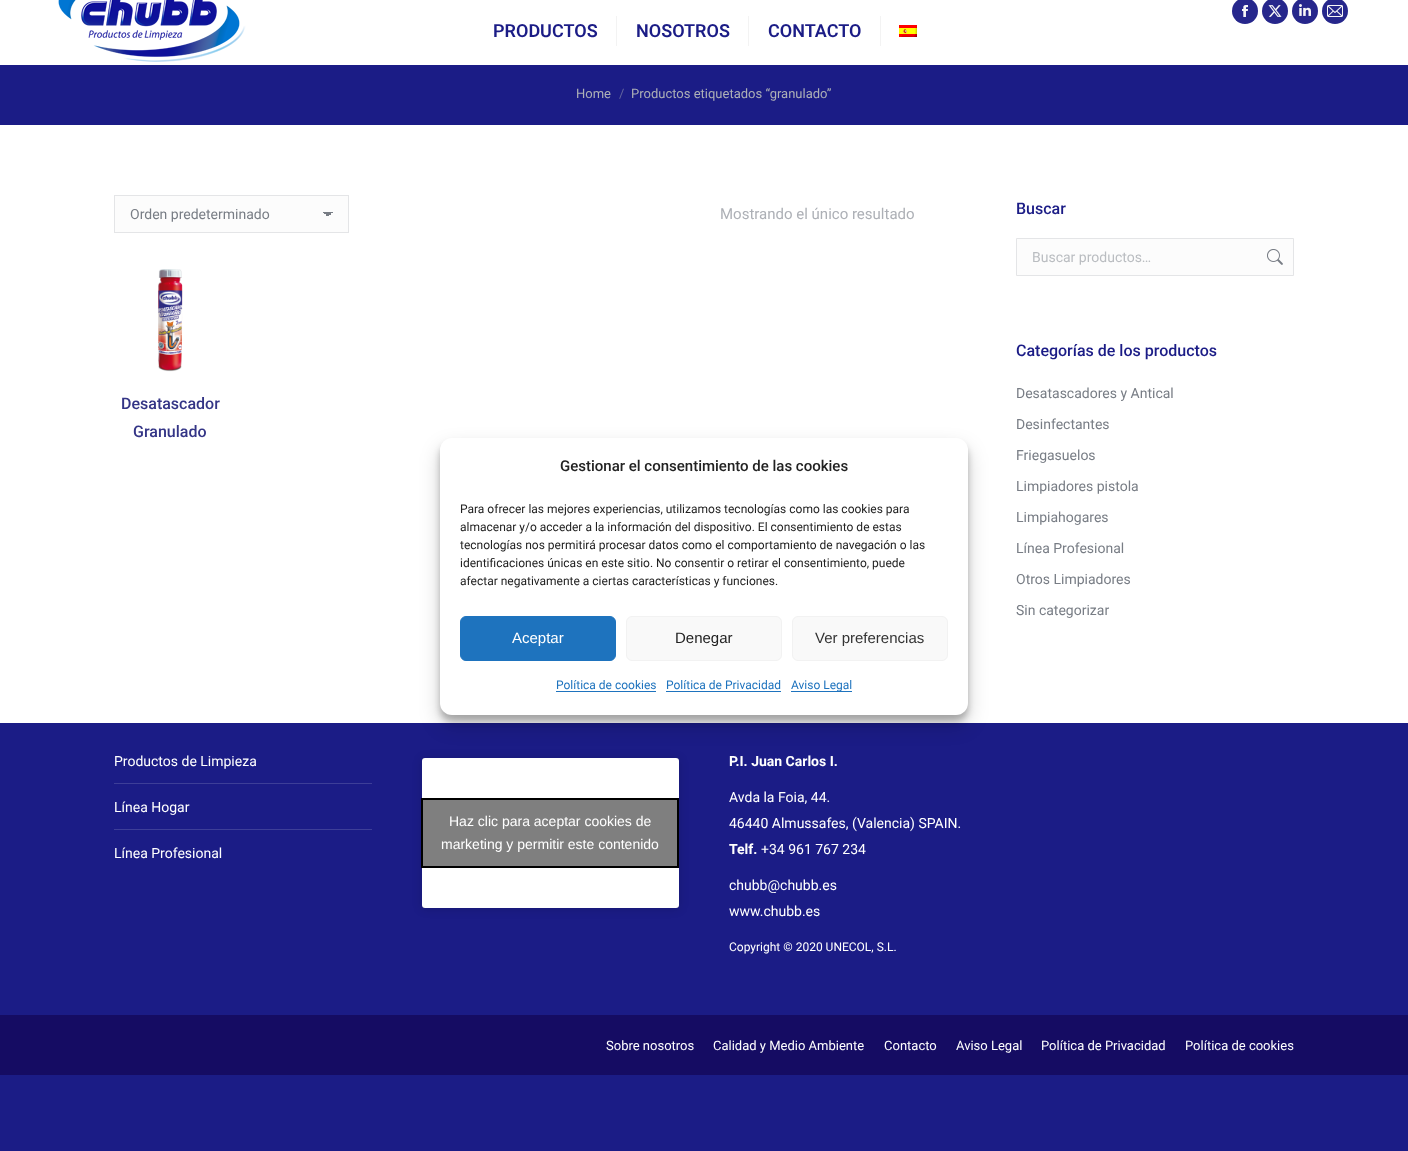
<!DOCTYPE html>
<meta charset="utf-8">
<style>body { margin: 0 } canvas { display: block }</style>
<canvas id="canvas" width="1408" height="1151"></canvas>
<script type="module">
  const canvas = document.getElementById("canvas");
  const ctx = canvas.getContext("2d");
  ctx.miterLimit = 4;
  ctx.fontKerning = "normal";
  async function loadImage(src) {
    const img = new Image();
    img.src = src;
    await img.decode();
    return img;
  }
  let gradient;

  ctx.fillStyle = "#1b1c86";
  ctx.fillRect(0, 0, 1408, 1151);
  ctx.fillStyle = "#ffffff";
  ctx.fillRect(0, 125, 1408, 598);
  ctx.fillRect(0, 0, 1408, 65);
  ctx.drawImage(await loadImage("img1.png"), 58, 0, 188, 62);
  ctx.font = "600 18px Roboto";
  ctx.fillStyle = "#1b1c86";
  ctx.fillText("PRODUCTOS", 493, 37);
  ctx.fillStyle = "#f3f3f3";
  ctx.fillRect(616, 16, 1, 30);
  ctx.fillStyle = "#1b1c86";
  ctx.fillText("NOSOTROS", 636, 37);
  ctx.fillStyle = "#f3f3f3";
  ctx.fillRect(748, 16, 1, 30);
  ctx.fillStyle = "#1b1c86";
  ctx.fillText("CONTACTO", 768, 37);
  ctx.fillStyle = "#f3f3f3";
  ctx.fillRect(880, 16, 1, 30);
  ctx.drawImage(await loadImage("img2.png"), 899, 25, 18, 12);
  ctx.fillStyle = "#26278c";
  ctx.beginPath();
  ctx.arc(1245, 11, 13, 0, Math.PI * 2);
  ctx.fill();
  ctx.drawImage(await loadImage("img3.png"), 1242, 5, 6, 12);
  ctx.beginPath();
  ctx.arc(1275, 11, 13, 0, Math.PI * 2);
  ctx.fill();
  ctx.drawImage(await loadImage("img4.png"), 1268, 5, 14, 12);
  ctx.beginPath();
  ctx.arc(1305, 11, 13, 0, Math.PI * 2);
  ctx.fill();
  ctx.drawImage(await loadImage("img5.png"), 1299, 4, 12, 12);
  ctx.beginPath();
  ctx.arc(1335, 11, 13, 0, Math.PI * 2);
  ctx.fill();
  ctx.drawImage(await loadImage("img6.png"), 1327, 5, 16, 12);
  ctx.font = "13px Roboto";
  ctx.fillStyle = "#adb0b6";
  ctx.fillText("Home", 576, 98);
  ctx.fillStyle = "#64669e";
  ctx.fillText("/", 619, 98);
  ctx.fillStyle = "#adb0b6";
  ctx.fillText("Productos etiquetados “granulado”", 631, 98);
  ctx.fillStyle = "#fcfcfc";
  ctx.fillRect(115, 196, 233, 36);
  gradient = ctx.createLinearGradient(328, 212, 333, 217);
  gradient.addColorStop(0.5, "#787d85");
  gradient.addColorStop(0.5, "#fcfcfc");
  ctx.fillStyle = gradient;
  ctx.fillRect(328, 212, 5, 4);
  gradient = ctx.createLinearGradient(323, 217, 328, 212);
  gradient.addColorStop(0.5, "#fcfcfc");
  gradient.addColorStop(0.5, "#787d85");
  ctx.fillStyle = gradient;
  ctx.fillRect(323, 212, 5, 4);
  ctx.strokeStyle = "#e4e5e7";
  ctx.strokeRect(114.5, 195.5, 234, 37);
  ctx.font = "14px Roboto";
  ctx.fillStyle = "#787d85";
  ctx.fillText("Orden predeterminado", 130, 219);
  ctx.font = "15px Roboto";
  ctx.fillStyle = "#adb0b6";
  ctx.fillText("Mostrando el único resultado", 720, 219);
  ctx.drawImage(await loadImage("img7.png"), 158, 269, 25, 103);
  ctx.font = "500 16px Roboto";
  ctx.fillStyle = "#343586";
  ctx.fillText("Desatascador", 121, 409);
  ctx.fillText("Granulado", 133, 437);
  ctx.fillStyle = "#1b1c86";
  ctx.fillText("Buscar", 1016, 214);
  ctx.fillStyle = "#fcfcfc";
  ctx.beginPath();
  ctx.rect(1016.5, 238.5, 277, 37);
  ctx.fill();
  ctx.stroke();
  ctx.font = "14px Roboto";
  ctx.fillStyle = "#babdc1";
  ctx.fillText("Buscar productos…", 1032, 262);
  ctx.drawImage(await loadImage("img8.png"), 1267, 249, 16, 16);
  ctx.font = "500 16px Roboto";
  ctx.fillStyle = "#1b1c86";
  ctx.fillText("Categorías de los productos", 1016, 356);
  ctx.font = "14px Roboto";
  ctx.fillStyle = "#787d85";
  ctx.fillText("Desatascadores y Antical", 1016, 398);
  ctx.fillText("Desinfectantes", 1016, 429);
  ctx.fillText("Friegasuelos", 1016, 460);
  ctx.fillText("Limpiadores pistola", 1016, 491);
  ctx.fillText("Limpiahogares", 1016, 522);
  ctx.fillText("Línea Profesional", 1016, 553);
  ctx.fillText("Otros Limpiadores", 1016, 584);
  ctx.fillText("Sin categorizar", 1016, 615);
  ctx.fillStyle = "#ffffff";
  ctx.fillText("Productos de Limpieza", 114, 766);
  ctx.fillStyle = "#3d3e98";
  ctx.fillRect(114, 783, 258, 1);
  ctx.fillStyle = "#ffffff";
  ctx.fillText("Línea Hogar", 114, 812);
  ctx.fillStyle = "#3d3e98";
  ctx.fillRect(114, 829, 258, 1);
  ctx.fillStyle = "#ffffff";
  ctx.fillText("Línea Profesional", 114, 858);
  ctx.fillStyle = "rgba(0, 0, 0, 0.15)";
  ctx.filter = "blur(5px)";
  ctx.beginPath();
  ctx.roundRect(422, 759, 257, 150, 3);
  ctx.fill();
  ctx.filter = "none";
  ctx.fillStyle = "rgba(0, 0, 0, 0.5)";
  ctx.filter = "blur(0.5px)";
  ctx.beginPath();
  ctx.roundRect(422, 758, 257, 150, 3);
  ctx.fill();
  ctx.filter = "none";
  ctx.fillStyle = "#ffffff";
  ctx.beginPath();
  ctx.roundRect(422, 758, 257, 150, 3);
  ctx.fill();
  ctx.fillStyle = "rgba(0, 0, 0, 0.5)";
  ctx.beginPath();
  ctx.rect(422, 799, 256, 68);
  ctx.fill();
  ctx.strokeStyle = "#000000";
  ctx.lineWidth = 2;
  ctx.stroke();
  ctx.font = "14px Liberation Sans";
  ctx.fillStyle = "#ffffff";
  ctx.fillText("Haz clic para aceptar cookies de", 449, 826);
  ctx.fillText("marketing y permitir este contenido", 441, 849);
  ctx.font = "bold 14px Roboto";
  ctx.fillText("P.I. Juan Carlos I.", 729, 766);
  ctx.font = "14px Roboto";
  ctx.fillText("Avda la Foia, 44.", 729, 802);
  ctx.fillText("46440 Almussafes, (Valencia) SPAIN.", 729, 828);
  ctx.font = "bold 14px Roboto";
  ctx.fillText("Telf.", 729, 854);
  ctx.font = "14px Roboto";
  ctx.fillText("+34 961 767 234", 761, 854);
  ctx.fillText("chubb@chubb.es", 729, 890);
  ctx.fillText("www.chubb.es", 729, 916);
  ctx.font = "12px Roboto";
  ctx.fillText("Copyright © 2020 UNECOL, S.L.", 729, 951);
  ctx.fillStyle = "#150c63";
  ctx.fillRect(0, 1015, 1408, 60);
  ctx.font = "13px Roboto";
  ctx.fillStyle = "#ffffff";
  ctx.fillText("Sobre nosotros", 606, 1050);
  ctx.fillText("Calidad y Medio Ambiente", 713, 1050);
  ctx.fillText("Contacto", 884, 1050);
  ctx.fillText("Aviso Legal", 956, 1050);
  ctx.fillText("Política de Privacidad", 1041, 1050);
  ctx.fillText("Política de cookies", 1185, 1050);
  ctx.fillStyle = "rgba(0, 0, 0, 0.23)";
  ctx.filter = "blur(3px)";
  ctx.beginPath();
  ctx.roundRect(440, 444, 528, 277, 12);
  ctx.fill();
  ctx.filter = "none";
  ctx.fillStyle = "rgba(0, 0, 0, 0.19)";
  ctx.filter = "blur(10px)";
  ctx.beginPath();
  ctx.roundRect(440, 448, 528, 277, 12);
  ctx.fill();
  ctx.filter = "none";
  ctx.fillStyle = "#ffffff";
  ctx.beginPath();
  ctx.roundRect(440, 438, 528, 277, 12);
  ctx.fill();
  ctx.font = "500 15px Roboto";
  ctx.fillStyle = "#222222";
  ctx.fillText("Gestionar el consentimiento de las cookies", 560, 471);
  ctx.font = "12px Roboto";
  ctx.fillText("Para ofrecer las mejores experiencias, utilizamos tecnologías como las cookies para", 460, 513);
  ctx.fillText("almacenar y/o acceder a la información del dispositivo. El consentimiento de estas", 460, 531);
  ctx.fillText("tecnologías nos permitirá procesar datos como el comportamiento de navegación o las", 460, 549);
  ctx.fillText("identificaciones únicas en este sitio. No consentir o retirar el consentimiento, puede", 460, 567);
  ctx.fillText("afectar negativamente a ciertas características y funciones.", 460, 585);
  ctx.fillStyle = "#1e73be";
  ctx.beginPath();
  ctx.roundRect(460.5, 616.5, 155, 44, 5.5);
  ctx.fill();
  ctx.strokeStyle = "#1e73be";
  ctx.lineWidth = 1;
  ctx.stroke();
  ctx.font = "15px Liberation Sans";
  ctx.fillStyle = "#ffffff";
  ctx.fillText("Aceptar", 512, 643);
  ctx.fillStyle = "#f9f9f9";
  ctx.beginPath();
  ctx.roundRect(626.5, 616.5, 155, 44, 5.5);
  ctx.fill();
  ctx.strokeStyle = "#f2f2f2";
  ctx.stroke();
  ctx.fillStyle = "#222222";
  ctx.fillText("Denegar", 675, 643);
  ctx.fillStyle = "#f9f9f9";
  ctx.beginPath();
  ctx.roundRect(792.5, 616.5, 155, 44, 5.5);
  ctx.fill();
  ctx.stroke();
  ctx.fillStyle = "#333333";
  ctx.fillText("Ver preferencias", 815, 643);
  ctx.font = "12px Roboto";
  ctx.fillStyle = "#1e73be";
  ctx.fillText("Política de cookies", 556, 689);
  ctx.fillRect(556, 691, 100, 1);
  ctx.fillText("Política de Privacidad", 666, 689);
  ctx.fillRect(666, 691, 115, 1);
  ctx.fillRect(791, 691, 61, 1);
  ctx.fillText("Aviso Legal", 791, 689);
</script>
